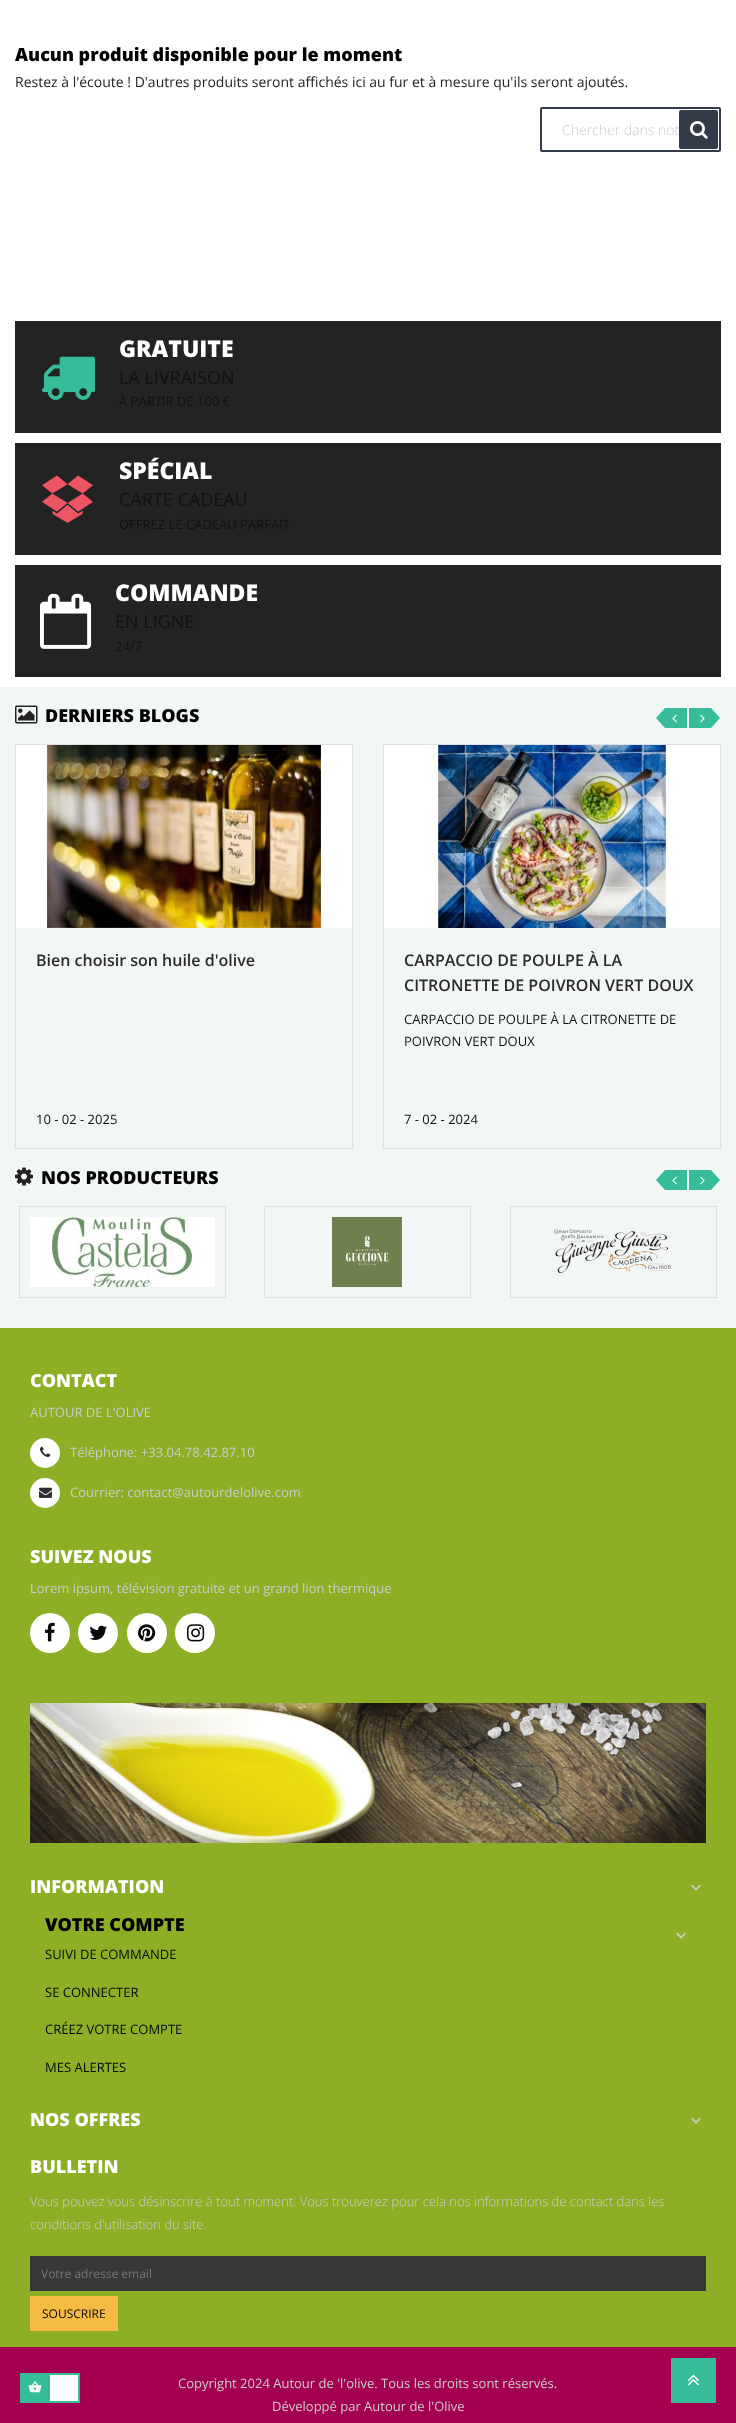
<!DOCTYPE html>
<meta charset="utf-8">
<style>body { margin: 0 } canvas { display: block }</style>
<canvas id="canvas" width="736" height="2423"></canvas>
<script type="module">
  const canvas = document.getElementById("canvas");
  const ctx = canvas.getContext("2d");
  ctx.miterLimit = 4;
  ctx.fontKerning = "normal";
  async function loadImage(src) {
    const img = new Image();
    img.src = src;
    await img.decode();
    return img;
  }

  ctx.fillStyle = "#ffffff";
  ctx.fillRect(0, 0, 736, 2423);
  ctx.font = "800 18px Open Sans";
  ctx.fillStyle = "#000000";
  ctx.fillText("Aucun produit disponible pour le moment", 15, 61);
  ctx.font = "14px Open Sans";
  ctx.fillStyle = "#232323";
  ctx.fillText("Restez à l'écoute ! D'autres produits seront affichés ici au fur et à mesure qu'ils seront ajoutés.", 15, 87);
  ctx.beginPath();
  ctx.roundRect(541, 108, 179, 43, 1);
  ctx.strokeStyle = "#333b48";
  ctx.lineWidth = 2;
  ctx.stroke();
  ctx.font = "300 14px Open Sans";
  ctx.fillStyle = "#cccccc";
  ctx.fillText("Chercher dans not", 562, 135);
  ctx.fillStyle = "#333b48";
  ctx.beginPath();
  ctx.roundRect(679, 110, 39, 39, 2);
  ctx.fill();
  ctx.drawImage(await loadImage("img1.png"), 690, 121, 18, 18);
  ctx.fillStyle = "#f2f7f5";
  ctx.fillRect(0, 687, 736, 641);
  ctx.fillStyle = "#232323";
  ctx.fillRect(15, 321, 706, 112);
  ctx.drawImage(await loadImage("img2.png"), 42, 356, 53, 44);
  ctx.font = "800 23px Open Sans";
  ctx.fillStyle = "#ffffff";
  ctx.fillText("GRATUITE", 119, 357);
  ctx.font = "18px Open Sans";
  ctx.fillStyle = "#121111";
  ctx.fillText("LA LIVRAISON", 119, 384);
  ctx.font = "13px Open Sans";
  ctx.fillText("À PARTIR DE 100 €", 119, 406);
  ctx.fillStyle = "#232323";
  ctx.fillRect(15, 443, 706, 112);
  ctx.drawImage(await loadImage("img3.png"), 42, 475, 51, 48);
  ctx.font = "800 23px Open Sans";
  ctx.fillStyle = "#ffffff";
  ctx.fillText("SPÉCIAL", 119, 479);
  ctx.font = "18px Open Sans";
  ctx.fillStyle = "#121111";
  ctx.fillText("CARTE CADEAU", 119, 506);
  ctx.font = "13px Open Sans";
  ctx.fillText("OFFREZ LE CADEAU PARFAIT", 119, 529);
  ctx.fillStyle = "#232323";
  ctx.fillRect(15, 565, 706, 112);
  ctx.drawImage(await loadImage("img4.png"), 40, 593, 52, 56);
  ctx.font = "800 23px Open Sans";
  ctx.fillStyle = "#ffffff";
  ctx.fillText("COMMANDE", 115, 601);
  ctx.font = "18px Open Sans";
  ctx.fillStyle = "#121111";
  ctx.fillText("EN LIGNE", 115, 628);
  ctx.font = "13px Open Sans";
  ctx.fillText("24/7", 115, 651);
  ctx.drawImage(await loadImage("img5.png"), 15, 705, 23, 19);
  ctx.font = "800 18px Open Sans";
  ctx.fillStyle = "#000000";
  ctx.fillText("DERNIERS BLOGS", 45, 722);
  ctx.fillStyle = "#37bc9b";
  ctx.fillRect(665, 708, 22, 20);
  ctx.beginPath();
  ctx.moveTo(665, 708);
  ctx.lineTo(665, 728);
  ctx.lineTo(656, 718);
  ctx.closePath();
  ctx.fill();
  ctx.drawImage(await loadImage("img6.png"), 672, 714, 5, 9);
  ctx.fillRect(689, 708, 22, 20);
  ctx.drawImage(await loadImage("img7.png"), 700, 714, 5, 9);
  ctx.beginPath();
  ctx.moveTo(711, 728);
  ctx.lineTo(711, 708);
  ctx.lineTo(720, 718);
  ctx.closePath();
  ctx.fill();
  ctx.strokeStyle = "#dfe0e1";
  ctx.lineWidth = 1;
  ctx.strokeRect(15.5, 744.5, 337, 404);
  ctx.drawImage(await loadImage("img8.png"), 16, 745, 336, 183);
  ctx.font = "600 16px Open Sans";
  ctx.fillStyle = "#2b292b";
  ctx.fillText("Bien choisir son huile d'olive", 36, 966);
  ctx.font = "13px Open Sans";
  ctx.fillStyle = "#121111";
  ctx.fillText("10 - 02 - 2025", 36, 1124);
  ctx.strokeRect(383.5, 744.5, 337, 404);
  ctx.drawImage(await loadImage("img9.png"), 384, 745, 336, 183);
  ctx.font = "600 16px Open Sans";
  ctx.fillStyle = "#2b292b";
  ctx.fillText("CARPACCIO DE POULPE À LA", 404, 966);
  ctx.fillText("CITRONETTE DE POIVRON VERT DOUX", 404, 991);
  ctx.font = "13px Open Sans";
  ctx.fillStyle = "#121111";
  ctx.fillText("CARPACCIO DE POULPE À LA CITRONETTE DE", 404, 1024);
  ctx.fillText("POIVRON VERT DOUX", 404, 1046);
  ctx.fillText("7 - 02 - 2024", 404, 1124);
  ctx.fillStyle = "#37bc9b";
  ctx.fillRect(665, 1170, 22, 20);
  ctx.beginPath();
  ctx.moveTo(665, 1170);
  ctx.lineTo(665, 1190);
  ctx.lineTo(656, 1180);
  ctx.closePath();
  ctx.fill();
  ctx.drawImage(await loadImage("img6.png"), 672, 1176, 5, 9);
  ctx.fillRect(689, 1170, 22, 20);
  ctx.drawImage(await loadImage("img7.png"), 700, 1176, 5, 9);
  ctx.beginPath();
  ctx.moveTo(711, 1190);
  ctx.lineTo(711, 1170);
  ctx.lineTo(720, 1180);
  ctx.closePath();
  ctx.fill();
  ctx.strokeRect(19.5, 1206.5, 206, 91);
  ctx.drawImage(await loadImage("img10.png"), 30, 1217, 185, 70);
  ctx.strokeRect(264.5, 1206.5, 206, 91);
  ctx.drawImage(await loadImage("img11.png"), 332, 1217, 70, 70);
  ctx.strokeRect(510.5, 1206.5, 206, 91);
  ctx.drawImage(await loadImage("img12.png"), 554, 1229, 117, 45);
  ctx.drawImage(await loadImage("img13.png"), 15, 1167, 18, 19);
  ctx.font = "800 18px Open Sans";
  ctx.fillStyle = "#000000";
  ctx.fillText("NOS PRODUCTEURS", 41, 1184);
  ctx.fillStyle = "#8daf25";
  ctx.fillRect(0, 1328, 736, 1019);
  ctx.fillStyle = "#ffffff";
  ctx.fillText("CONTACT", 30, 1387);
  ctx.font = "13px Open Sans";
  ctx.fillStyle = "#cccccc";
  ctx.fillText("AUTOUR DE L'OLIVE", 30, 1417);
  ctx.fillStyle = "#ffffff";
  ctx.beginPath();
  ctx.arc(45, 1453, 15, 0, Math.PI * 2);
  ctx.fill();
  ctx.drawImage(await loadImage("img14.png"), 40, 1446, 11, 11);
  ctx.fillStyle = "#cccccc";
  ctx.fillText("Téléphone: +33.04.78.42.87.10", 70, 1457);
  ctx.fillStyle = "#ffffff";
  ctx.beginPath();
  ctx.arc(45, 1493, 15, 0, Math.PI * 2);
  ctx.fill();
  ctx.drawImage(await loadImage("img15.png"), 39, 1487, 13, 11);
  ctx.fillStyle = "#cccccc";
  ctx.fillText("Courrier: contact@autourdelolive.com", 70, 1497);
  ctx.font = "800 18px Open Sans";
  ctx.fillStyle = "#ffffff";
  ctx.fillText("SUIVEZ NOUS", 30, 1563);
  ctx.font = "13px Open Sans";
  ctx.fillStyle = "#cccccc";
  ctx.fillText("Lorem ipsum, télévision gratuite et un grand lion thermique", 30, 1593);
  ctx.fillStyle = "#ffffff";
  ctx.beginPath();
  ctx.arc(50, 1633, 20, 0, Math.PI * 2);
  ctx.fill();
  ctx.drawImage(await loadImage("img16.png"), 45, 1622, 10, 20);
  ctx.beginPath();
  ctx.arc(98, 1633, 20, 0, Math.PI * 2);
  ctx.fill();
  ctx.drawImage(await loadImage("img17.png"), 89, 1625, 18, 15);
  ctx.beginPath();
  ctx.arc(147, 1633, 20, 0, Math.PI * 2);
  ctx.fill();
  ctx.drawImage(await loadImage("img18.png"), 138, 1624, 18, 18);
  ctx.beginPath();
  ctx.arc(195, 1633, 20, 0, Math.PI * 2);
  ctx.fill();
  ctx.drawImage(await loadImage("img19.png"), 187, 1624, 18, 18);
  ctx.drawImage(await loadImage("img20.png"), 30, 1703, 676, 140);
  ctx.font = "800 18px Open Sans";
  ctx.fillText("INFORMATION", 30, 1893);
  ctx.drawImage(await loadImage("img21.png"), 691, 1884, 10, 7);
  ctx.fillStyle = "#000000";
  ctx.fillText("VOTRE COMPTE", 45, 1931);
  ctx.drawImage(await loadImage("img21.png"), 676, 1932, 10, 7);
  ctx.font = "13px Open Sans";
  ctx.fillStyle = "#080808";
  ctx.fillText("SUIVI DE COMMANDE", 45, 1959);
  ctx.fillText("SE CONNECTER", 45, 1997);
  ctx.fillText("CRÉEZ VOTRE COMPTE", 45, 2034);
  ctx.fillText("MES ALERTES", 45, 2072);
  ctx.font = "800 18px Open Sans";
  ctx.fillStyle = "#ffffff";
  ctx.fillText("NOS OFFRES", 30, 2126);
  ctx.drawImage(await loadImage("img21.png"), 691, 2117, 10, 7);
  ctx.fillText("BULLETIN", 30, 2173);
  ctx.font = "300 13px Open Sans";
  ctx.fillStyle = "#cccccc";
  ctx.fillText("Vous pouvez vous désinscrire à tout moment. Vous trouverez pour cela nos informations de contact dans les", 30, 2206);
  ctx.fillText("conditions d'utilisation du site.", 30, 2229);
  ctx.fillStyle = "#383838";
  ctx.fillRect(30, 2256, 676, 35);
  ctx.font = "12px Open Sans";
  ctx.fillStyle = "#777673";
  ctx.fillText("Votre adresse email", 41, 2278);
  ctx.fillStyle = "#f6bb42";
  ctx.fillRect(30, 2296, 88, 35);
  ctx.fillStyle = "#080808";
  ctx.fillText("SOUSCRIRE", 42, 2318);
  ctx.fillStyle = "#a30051";
  ctx.fillRect(0, 2347, 736, 76);
  ctx.font = "13px Open Sans";
  ctx.fillStyle = "#cccccc";
  ctx.fillText("Copyright 2024 Autour de 'l'olive. Tous les droits sont réservés.", 178, 2388);
  ctx.fillText("Développé par Autour de l'Olive", 272, 2411);
  ctx.fillStyle = "#37bc9b";
  ctx.fillRect(671, 2358, 45, 45);
  ctx.drawImage(await loadImage("img22.png"), 687, 2374, 12, 12);
  ctx.fillRect(20, 2373, 60, 30);
  ctx.drawImage(await loadImage("img23.png"), 28, 2381, 14, 12);
  ctx.fillStyle = "#ffffff";
  ctx.fillRect(50, 2375, 28, 26);
</script>
